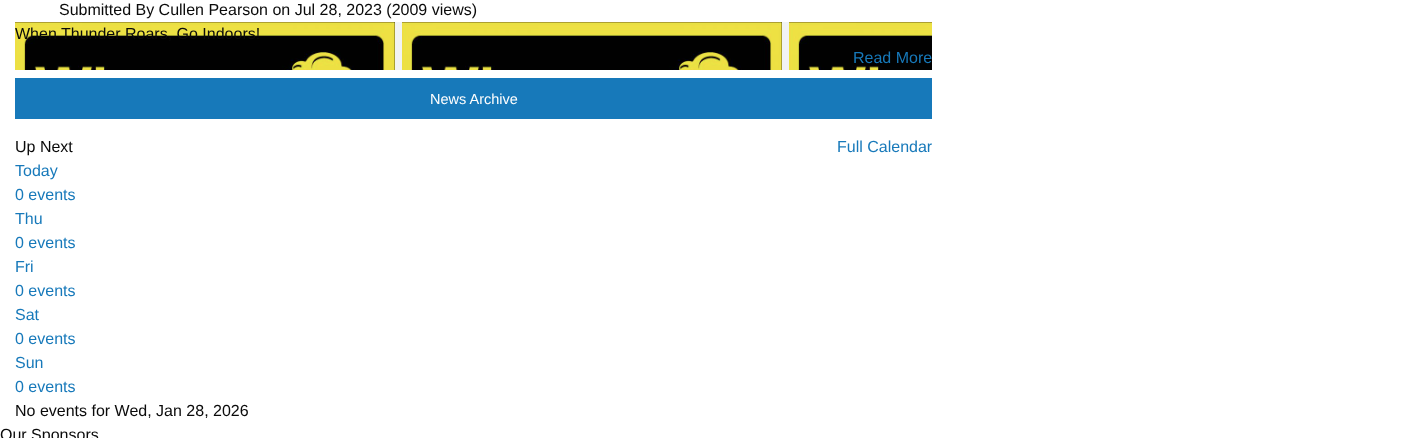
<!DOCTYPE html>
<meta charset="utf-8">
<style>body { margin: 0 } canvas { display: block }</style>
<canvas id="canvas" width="1420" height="438"></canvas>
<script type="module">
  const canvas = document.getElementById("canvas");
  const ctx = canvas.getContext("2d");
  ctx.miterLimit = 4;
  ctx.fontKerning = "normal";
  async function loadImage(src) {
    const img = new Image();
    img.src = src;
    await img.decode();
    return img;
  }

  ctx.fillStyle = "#ffffff";
  ctx.fillRect(0, 0, 1420, 438);
  ctx.font = "16px Liberation Sans";
  ctx.fillStyle = "#0a0a0a";
  ctx.fillText("Submitted By Cullen Pearson on Jul 28, 2023 (2009 views)", 59, 15);
  ctx.drawImage(await loadImage("img1.png"), 15, 22, 917, 48);
  ctx.fillText("When Thunder Roars, Go Indoors!", 15, 39);
  ctx.fillStyle = "#1779ba";
  ctx.fillText("Read More", 853, 63);
  ctx.fillRect(15, 78, 917, 41);
  ctx.font = "14.5px Liberation Sans";
  ctx.fillStyle = "#fefefe";
  ctx.fillText("News Archive", 430, 104);
  ctx.font = "16px Liberation Sans";
  ctx.fillStyle = "#0a0a0a";
  ctx.fillText("Up Next", 15, 152);
  ctx.fillStyle = "#1779ba";
  ctx.fillText("Full Calendar", 837, 152);
  ctx.fillText("Today", 15, 176);
  ctx.fillText("0 events", 15, 200);
  ctx.fillText("Thu", 15, 224);
  ctx.fillText("0 events", 15, 248);
  ctx.fillText("Fri", 15, 272);
  ctx.fillText("0 events", 15, 296);
  ctx.fillText("Sat", 15, 320);
  ctx.fillText("0 events", 15, 344);
  ctx.fillText("Sun", 15, 368);
  ctx.fillText("0 events", 15, 392);
  ctx.fillStyle = "#0a0a0a";
  ctx.fillText("No events for Wed, Jan 28, 2026", 15, 416);
  ctx.fillText("Our Sponsors", 0, 440);
</script>
